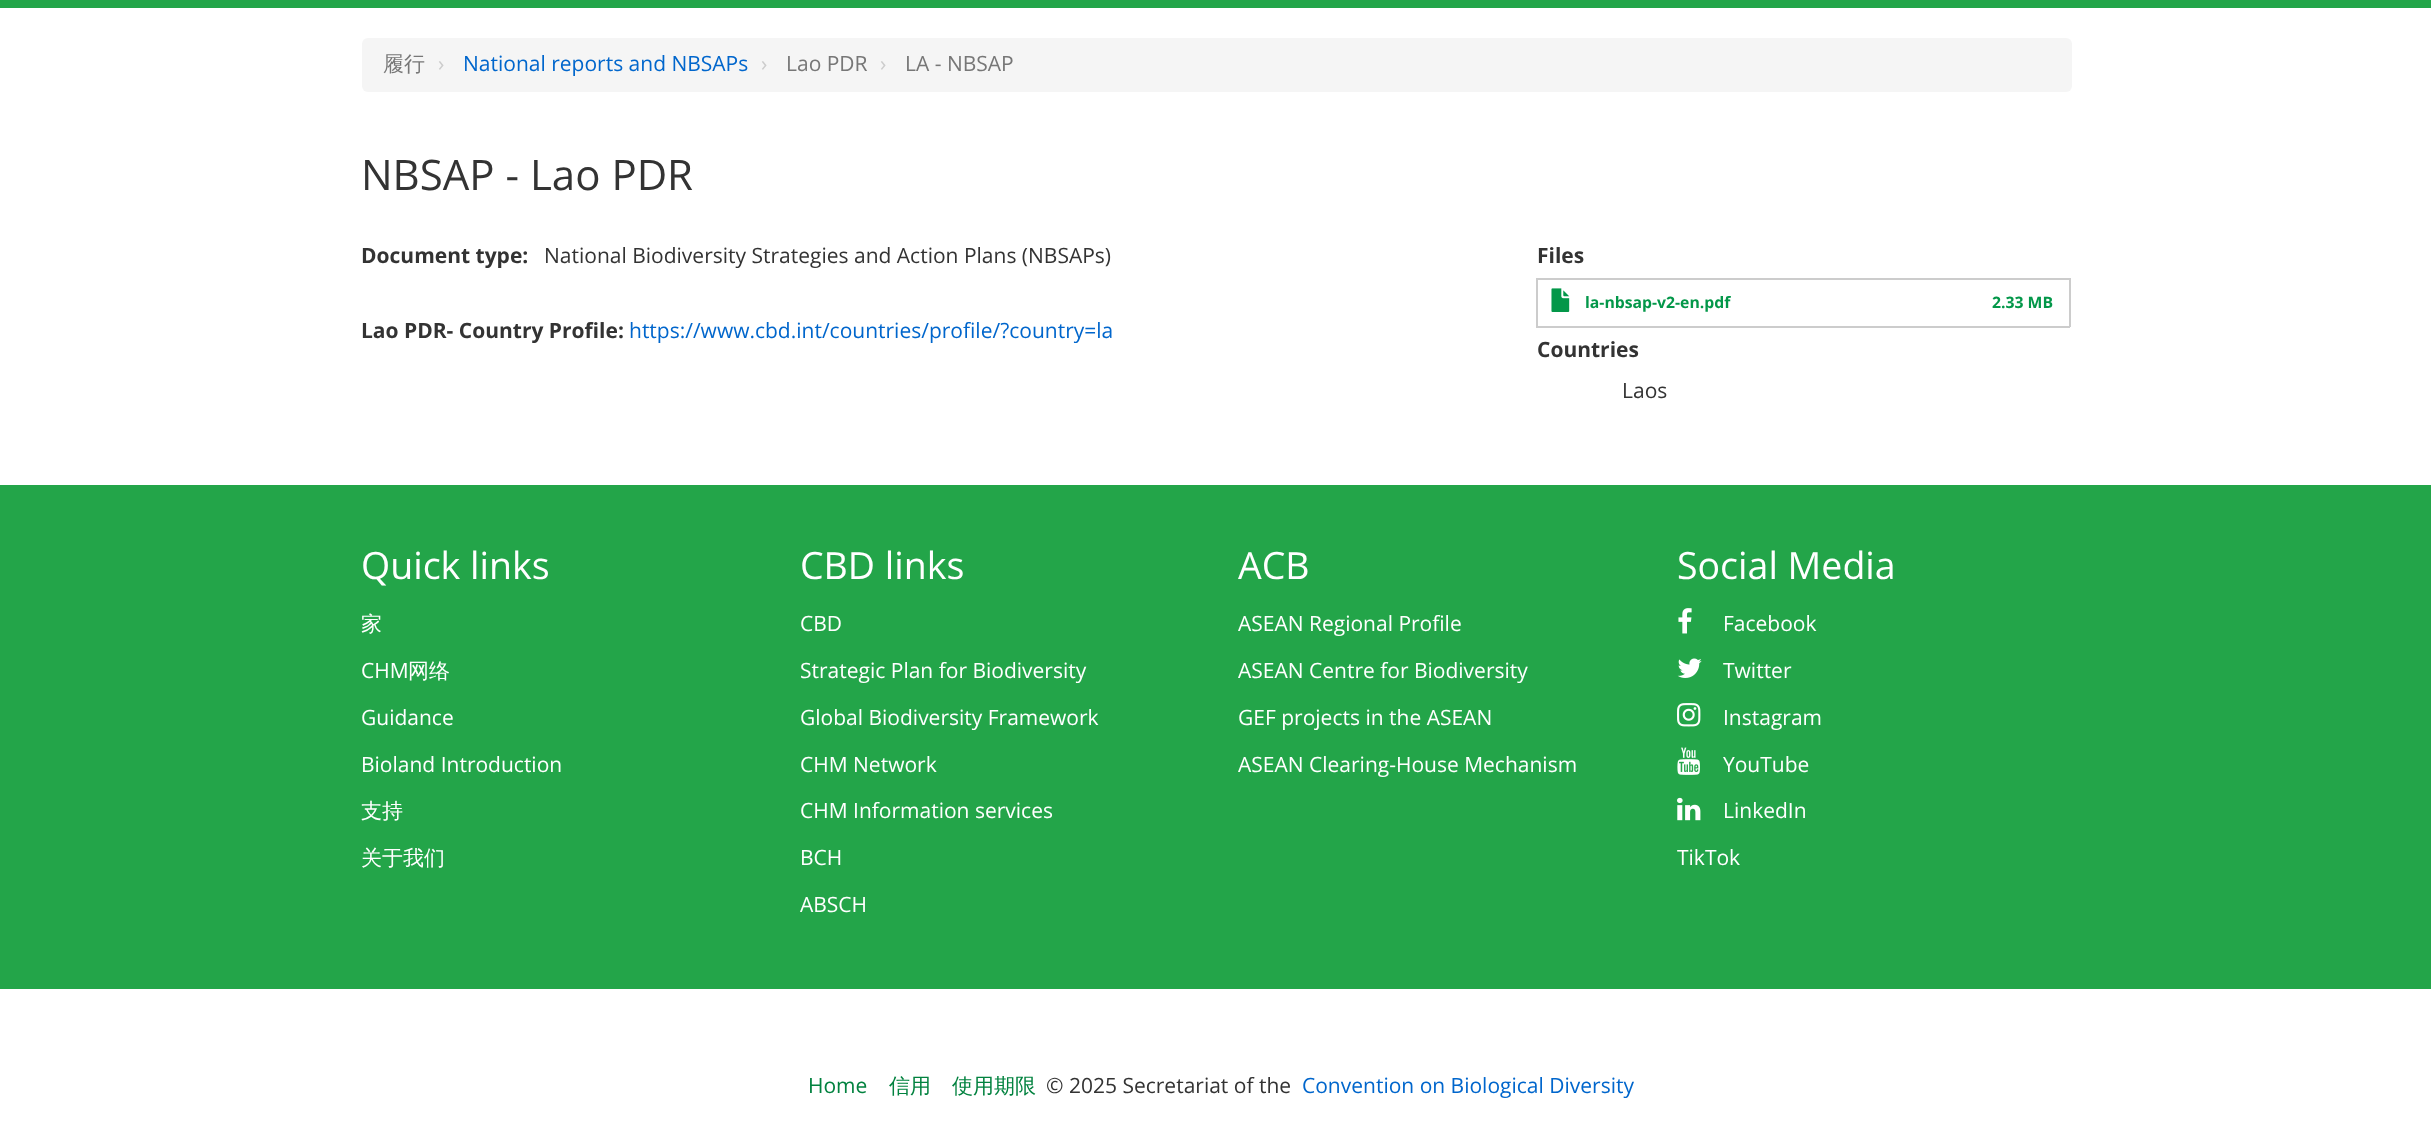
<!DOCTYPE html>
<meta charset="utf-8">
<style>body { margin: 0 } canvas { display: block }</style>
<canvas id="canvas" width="2431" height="1140"></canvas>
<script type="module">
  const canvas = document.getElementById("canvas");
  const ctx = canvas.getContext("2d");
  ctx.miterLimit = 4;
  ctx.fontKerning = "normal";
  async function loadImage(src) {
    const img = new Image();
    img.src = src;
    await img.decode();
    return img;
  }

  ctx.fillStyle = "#ffffff";
  ctx.fillRect(0, 0, 2431, 1140);
  ctx.fillStyle = "#23a549";
  ctx.fillRect(0, 0, 2431, 8);
  ctx.fillStyle = "#f5f5f5";
  ctx.beginPath();
  ctx.roundRect(362, 38, 1710, 54, 6);
  ctx.fill();
  ctx.font = "500 21px WenQuanYi Zen Hei";
  ctx.fillStyle = "#777777";
  ctx.fillText("履行", 383, 71);
  ctx.font = "21px Open Sans";
  ctx.fillStyle = "#cccccc";
  ctx.fillText("›", 438, 71);
  ctx.fillStyle = "#0066cc";
  ctx.fillText("National reports and NBSAPs", 463, 71);
  ctx.fillStyle = "#cccccc";
  ctx.fillText("›", 761, 71);
  ctx.fillStyle = "#777777";
  ctx.fillText("Lao PDR", 786, 71);
  ctx.fillStyle = "#cccccc";
  ctx.fillText("›", 880, 71);
  ctx.fillStyle = "#777777";
  ctx.fillText("LA - NBSAP", 905, 71);
  ctx.font = "42px Open Sans";
  ctx.fillStyle = "#333333";
  ctx.fillText("NBSAP - Lao PDR", 361, 190);
  ctx.font = "bold 21px Open Sans";
  ctx.fillText("Document type:", 361, 263);
  ctx.font = "21px Open Sans";
  ctx.fillText("National Biodiversity Strategies and Action Plans (NBSAPs)", 544, 263);
  ctx.font = "bold 21px Open Sans";
  ctx.fillText("Lao PDR- Country Profile:", 361, 338);
  ctx.font = "21px Open Sans";
  ctx.fillStyle = "#0066cc";
  ctx.fillText("https://www.cbd.int/countries/profile/?country=la", 629, 338);
  ctx.font = "bold 21px Open Sans";
  ctx.fillStyle = "#333333";
  ctx.fillText("Files", 1537, 263);
  ctx.fillStyle = "#cccccc";
  ctx.fillRect(1536, 278, 534, 2);
  ctx.fillRect(1536, 326, 441, 2);
  ctx.fillRect(1536, 278, 2, 49);
  ctx.drawImage(await loadImage("img1.png"), 1551, 288, 19, 24);
  ctx.font = "bold 15.75px Open Sans";
  ctx.fillStyle = "#039749";
  ctx.fillText("la-nbsap-v2-en.pdf", 1585, 308);
  ctx.fillStyle = "#cccccc";
  ctx.fillRect(2069, 278, 2, 49);
  ctx.fillRect(1977, 326, 93, 2);
  ctx.fillStyle = "#039749";
  ctx.fillText("2.33 MB", 1992, 308);
  ctx.font = "bold 21px Open Sans";
  ctx.fillStyle = "#333333";
  ctx.fillText("Countries", 1537, 357);
  ctx.font = "21px Open Sans";
  ctx.fillText("Laos", 1622, 398);
  ctx.fillStyle = "#23a549";
  ctx.fillRect(0, 485, 2431, 504);
  ctx.font = "37.5px Open Sans";
  ctx.fillStyle = "#ffffff";
  ctx.fillText("Quick links", 361, 579);
  ctx.font = "500 21px WenQuanYi Zen Hei";
  ctx.fillText("家", 361, 631);
  ctx.font = "21px Open Sans";
  ctx.fillText("CHM", 361, 678);
  ctx.font = "500 21px WenQuanYi Zen Hei";
  ctx.fillText("网络", 408, 678);
  ctx.font = "21px Open Sans";
  ctx.fillText("Guidance", 361, 725);
  ctx.fillText("Bioland Introduction", 361, 772);
  ctx.font = "500 21px WenQuanYi Zen Hei";
  ctx.fillText("支持", 361, 818);
  ctx.fillText("关于我们", 361, 865);
  ctx.font = "37.5px Open Sans";
  ctx.fillText("CBD links", 800, 579);
  ctx.font = "21px Open Sans";
  ctx.fillText("CBD", 800, 631);
  ctx.fillText("Strategic Plan for Biodiversity", 800, 678);
  ctx.fillText("Global Biodiversity Framework", 800, 725);
  ctx.fillText("CHM Network", 800, 772);
  ctx.fillText("CHM Information services", 800, 818);
  ctx.fillText("BCH", 800, 865);
  ctx.fillText("ABSCH", 800, 912);
  ctx.font = "37.5px Open Sans";
  ctx.fillText("ACB", 1238, 579);
  ctx.font = "21px Open Sans";
  ctx.fillText("ASEAN Regional Profile", 1238, 631);
  ctx.fillText("ASEAN Centre for Biodiversity", 1238, 678);
  ctx.fillText("GEF projects in the ASEAN", 1238, 725);
  ctx.fillText("ASEAN Clearing-House Mechanism", 1238, 772);
  ctx.font = "37.5px Open Sans";
  ctx.fillText("Social Media", 1677, 579);
  ctx.drawImage(await loadImage("img2.png"), 1678, 608, 14, 26);
  ctx.font = "21px Open Sans";
  ctx.fillText("Facebook", 1723, 631);
  ctx.drawImage(await loadImage("img3.png"), 1677, 658, 25, 20);
  ctx.fillText("Twitter", 1723, 678);
  ctx.drawImage(await loadImage("img4.png"), 1677, 703, 24, 24);
  ctx.fillText("Instagram", 1723, 725);
  ctx.drawImage(await loadImage("img5.png"), 1677, 747, 23, 28);
  ctx.fillText("YouTube", 1723, 772);
  ctx.drawImage(await loadImage("img6.png"), 1677, 797, 24, 24);
  ctx.fillText("LinkedIn", 1723, 818);
  ctx.fillText("TikTok", 1677, 865);
  ctx.fillStyle = "#02823f";
  ctx.fillText("Home", 808, 1093);
  ctx.font = "500 21px WenQuanYi Zen Hei";
  ctx.fillText("信用", 889, 1093);
  ctx.fillText("使用期限", 952, 1093);
  ctx.font = "21px Open Sans";
  ctx.fillStyle = "#333333";
  ctx.fillText("© 2025 Secretariat of the", 1046, 1093);
  ctx.fillStyle = "#0066cc";
  ctx.fillText("Convention on Biological Diversity", 1302, 1093);
</script>
